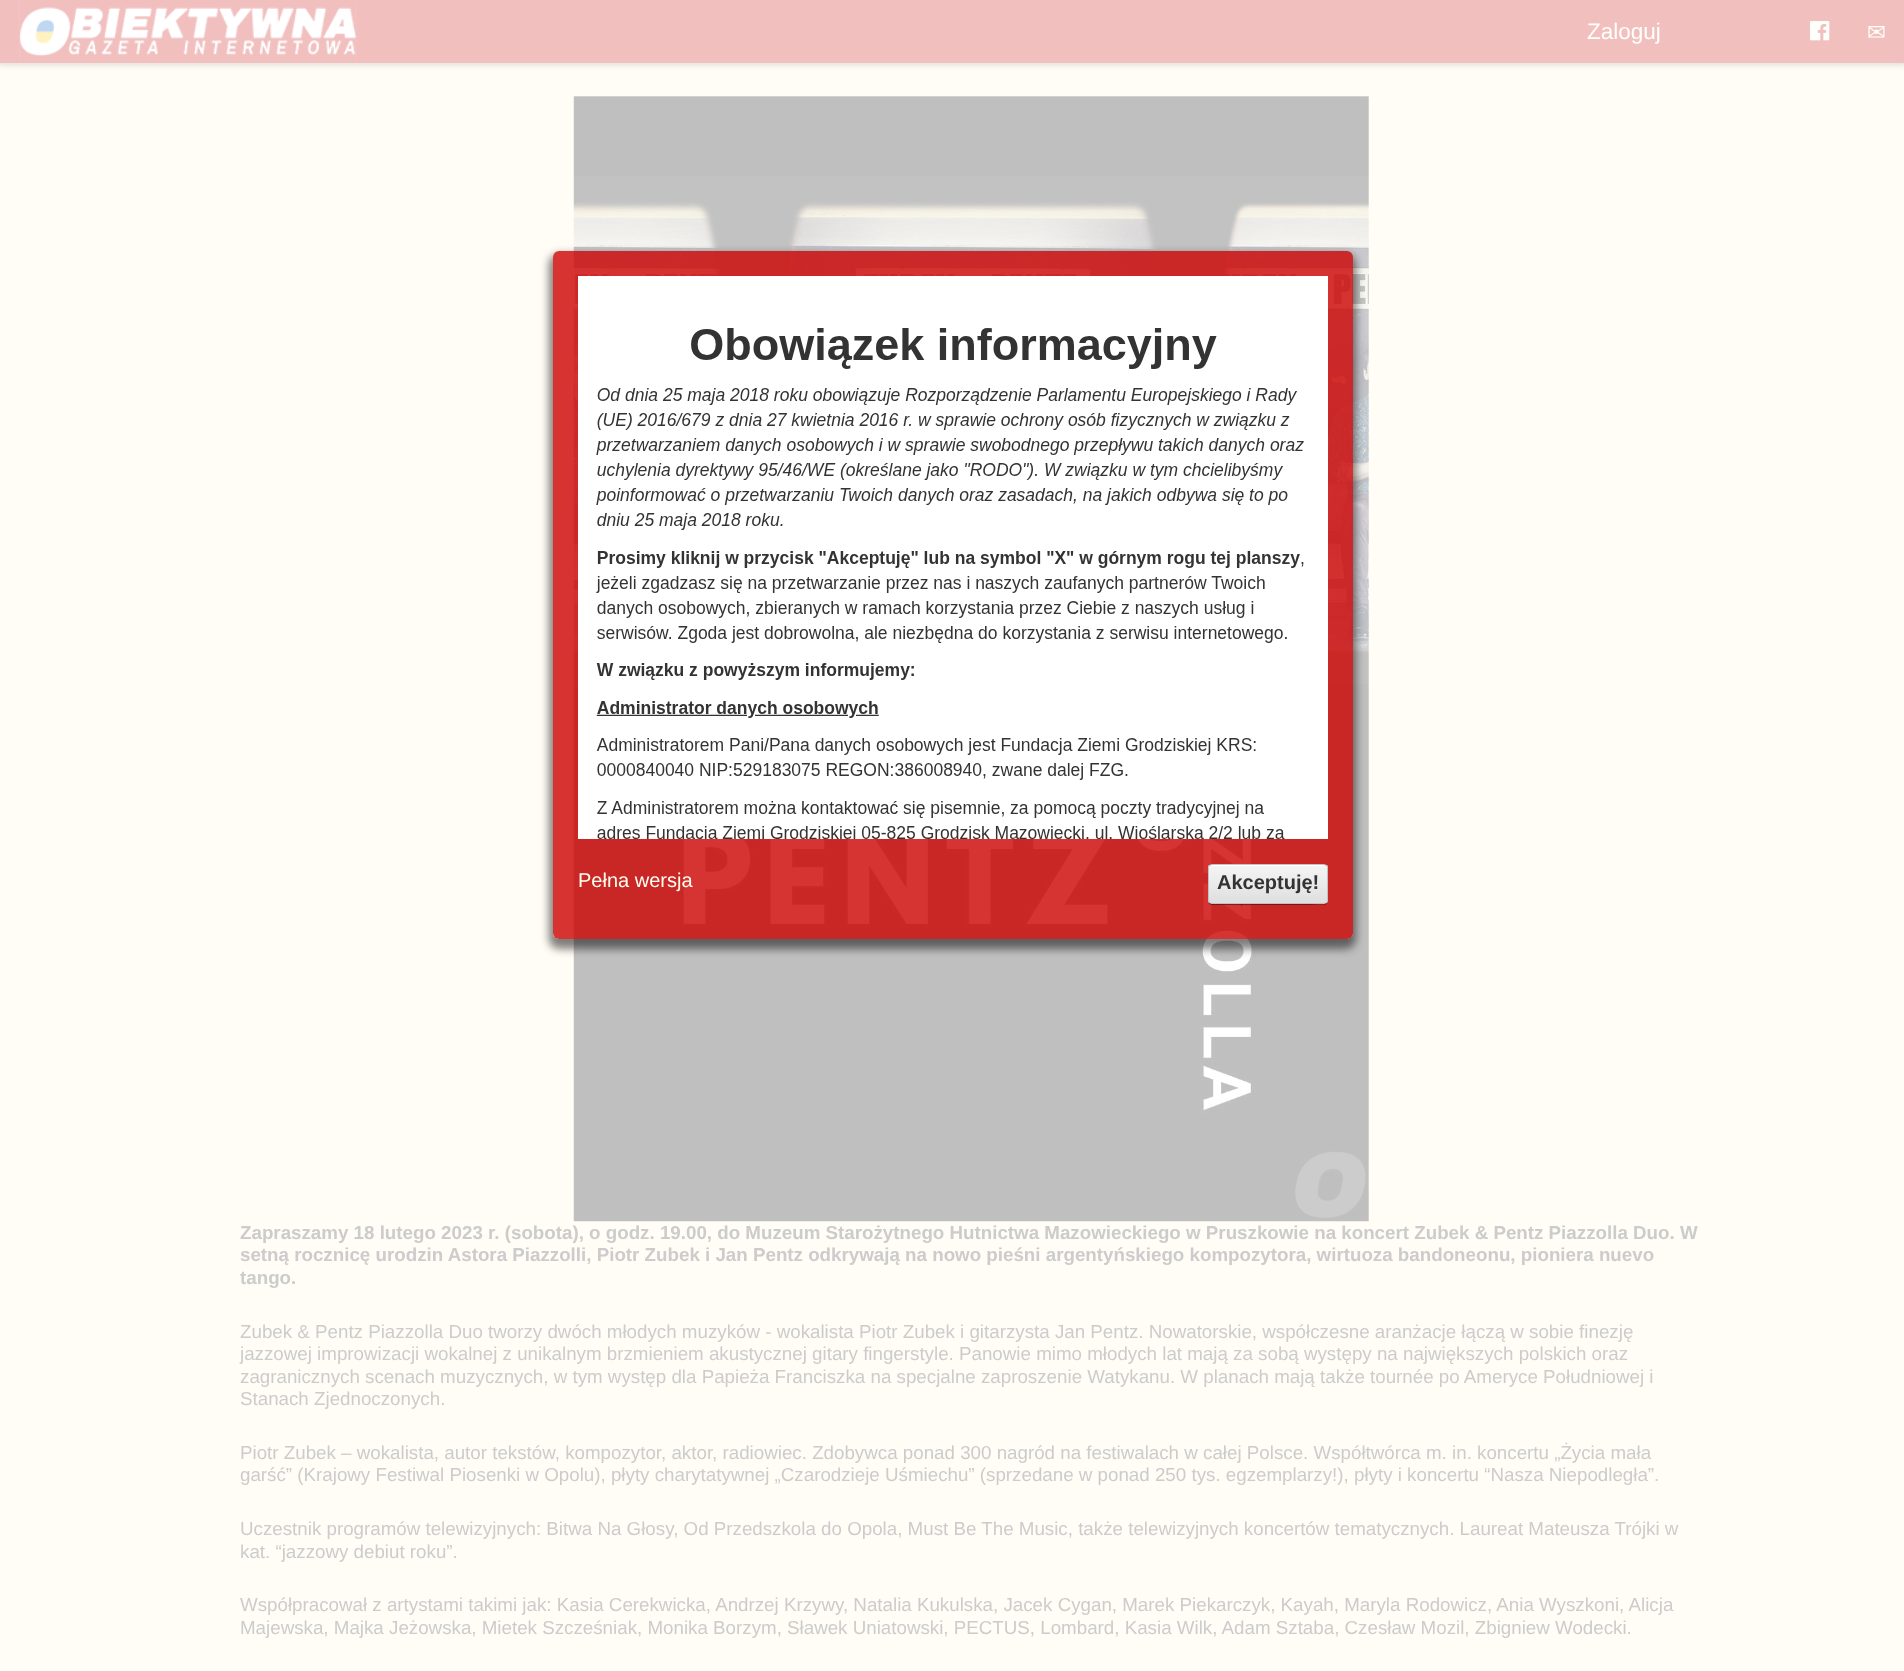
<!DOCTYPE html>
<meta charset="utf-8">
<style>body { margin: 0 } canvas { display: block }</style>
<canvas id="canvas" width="1904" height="1671"></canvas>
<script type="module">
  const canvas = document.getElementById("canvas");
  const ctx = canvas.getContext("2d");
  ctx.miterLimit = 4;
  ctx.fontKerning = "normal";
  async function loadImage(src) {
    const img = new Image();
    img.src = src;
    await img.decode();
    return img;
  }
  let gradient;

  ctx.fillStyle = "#fffdf6";
  ctx.fillRect(0, 0, 1904, 1671);
  ctx.fillStyle = "rgba(191, 191, 191, 0.5)";
  ctx.filter = "blur(3px)";
  ctx.beginPath();
  ctx.rect(-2, -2, 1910, 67);
  ctx.fill();
  ctx.filter = "none";
  ctx.fillStyle = "#f2bfbf";
  ctx.fillRect(0, 0, 1904, 63);
  ctx.drawImage(await loadImage("img1.png"), 18, 0, 339, 61);
  ctx.font = "22.5px Liberation Sans";
  ctx.fillStyle = "#fffffb";
  ctx.fillText("Zaloguj", 1587, 39);
  ctx.drawImage(await loadImage("img2.png"), 1810, 21, 20, 20);
  ctx.font = "22.5px DejaVu Sans";
  ctx.fillText("✉", 1867, 40);
  ctx.drawImage(await loadImage("img4.png"), 573, 96, 796, 1126);
  ctx.save();
  ctx.beginPath();
  ctx.moveTo(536, 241);
  ctx.lineTo(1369, 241);
  ctx.lineTo(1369, 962);
  ctx.lineTo(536, 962);
  ctx.closePath();
  ctx.moveTo(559, 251);
  ctx.lineTo(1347, 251);
  ctx.bezierCurveTo(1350.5, 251, 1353, 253.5, 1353, 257);
  ctx.lineTo(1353, 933);
  ctx.bezierCurveTo(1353, 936.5, 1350.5, 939, 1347, 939);
  ctx.lineTo(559, 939);
  ctx.bezierCurveTo(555.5, 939, 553, 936.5, 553, 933);
  ctx.lineTo(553, 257);
  ctx.bezierCurveTo(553, 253.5, 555.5, 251, 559, 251);
  ctx.closePath();
  ctx.clip("evenodd");
  ctx.fillStyle = "rgba(0, 0, 0, 0.5)";
  ctx.filter = "blur(4px)";
  ctx.beginPath();
  ctx.roundRect(549, 254, 807, 695, 10);
  ctx.fill();
  ctx.filter = "none";
  ctx.restore();
  ctx.fillStyle = "rgba(204, 0, 0, 0.8)";
  ctx.beginPath();
  ctx.roundRect(553, 251, 800, 688, 6);
  ctx.fill();
  ctx.drawImage(await loadImage("img3.png"), 578, 276, 750, 563);
  ctx.font = "20px Liberation Sans";
  ctx.fillStyle = "#fffff0";
  ctx.fillText("Pełna wersja", 578, 887);
  ctx.fillStyle = "rgba(0, 0, 0, 0.4)";
  ctx.beginPath();
  ctx.moveTo(1208, 902);
  ctx.bezierCurveTo(1209, 904, 1210, 905, 1212, 905);
  ctx.lineTo(1324, 905);
  ctx.bezierCurveTo(1326, 905, 1328, 903, 1328, 901);
  ctx.lineTo(1328, 869);
  ctx.lineTo(1327, 867);
  ctx.lineTo(1328, 889);
  ctx.bezierCurveTo(1328, 909, 1328, 904, 1305, 904);
  ctx.lineTo(1211, 904);
  ctx.closePath();
  ctx.fill();
  ctx.save();
  ctx.beginPath();
  ctx.roundRect(1208, 864, 120, 40, 4);
  ctx.clip();
  gradient = ctx.createLinearGradient(1268, 865, 1268, 903);
  gradient.addColorStop(0, "#f5f5f5");
  gradient.addColorStop(1, "#dfdfdf");
  ctx.fillStyle = gradient;
  ctx.fillRect(1208, 865, 120, 38);
  ctx.restore();
  ctx.fillStyle = "#ffffff";
  ctx.beginPath();
  ctx.moveTo(1211, 866);
  ctx.lineTo(1324, 866);
  ctx.bezierCurveTo(1325, 866, 1326, 867, 1326, 869);
  ctx.lineTo(1326, 868);
  ctx.bezierCurveTo(1326, 866, 1325, 865, 1324, 865);
  ctx.lineTo(1212, 865);
  ctx.bezierCurveTo(1210, 865, 1209, 866, 1209, 868);
  ctx.lineTo(1209, 869);
  ctx.bezierCurveTo(1209, 867, 1210, 866, 1211, 866);
  ctx.closePath();
  ctx.fill();
  ctx.beginPath();
  ctx.roundRect(1208.5, 864.5, 119, 39, 3.5);
  ctx.strokeStyle = "#c2c2c2";
  ctx.stroke();
  ctx.font = "bold 20px Liberation Sans";
  ctx.fillStyle = "#333333";
  ctx.fillText("Akceptuję!", 1217, 889);
  ctx.font = "bold 18.75px Liberation Sans";
  ctx.fillStyle = "#cccccc";
  ctx.fillText("Zapraszamy 18 lutego 2023 r. (sobota), o godz. 19.00, do Muzeum Starożytnego Hutnictwa Mazowieckiego w Pruszkowie na koncert Zubek & Pentz Piazzolla Duo. W", 240, 1239);
  ctx.fillText("setną rocznicę urodzin Astora Piazzolli, Piotr Zubek i Jan Pentz odkrywają na nowo pieśni argentyńskiego kompozytora, wirtuoza bandoneonu, pioniera nuevo", 240, 1261);
  ctx.fillText("tango.", 240, 1284);
  ctx.font = "18.75px Liberation Sans";
  ctx.fillText("Zubek & Pentz Piazzolla Duo tworzy dwóch młodych muzyków - wokalista Piotr Zubek i gitarzysta Jan Pentz. Nowatorskie, współczesne aranżacje łączą w sobie finezję", 240, 1338);
  ctx.fillText("jazzowej improwizacji wokalnej z unikalnym brzmieniem akustycznej gitary fingerstyle. Panowie mimo młodych lat mają za sobą występy na największych polskich oraz", 240, 1360);
  ctx.fillText("zagranicznych scenach muzycznych, w tym występ dla Papieża Franciszka na specjalne zaproszenie Watykanu. W planach mają także tournée po Ameryce Południowej i", 240, 1383);
  ctx.fillText("Stanach Zjednoczonych.", 240, 1405);
  ctx.fillText("Piotr Zubek – wokalista, autor tekstów, kompozytor, aktor, radiowiec. Zdobywca ponad 300 nagród na festiwalach w całej Polsce. Współtwórca m. in. koncertu „Życia mała", 240, 1459);
  ctx.fillText("garść” (Krajowy Festiwal Piosenki w Opolu), płyty charytatywnej „Czarodzieje Uśmiechu” (sprzedane w ponad 250 tys. egzemplarzy!), płyty i koncertu “Nasza Niepodległa”.", 240, 1481);
  ctx.fillText("Uczestnik programów telewizyjnych: Bitwa Na Głosy, Od Przedszkola do Opola, Must Be The Music, także telewizyjnych koncertów tematycznych. Laureat Mateusza Trójki w", 240, 1535);
  ctx.fillText("kat. “jazzowy debiut roku”.", 240, 1558);
  ctx.fillText("Współpracował z artystami takimi jak: Kasia Cerekwicka, Andrzej Krzywy, Natalia Kukulska, Jacek Cygan, Marek Piekarczyk, Kayah, Maryla Rodowicz, Ania Wyszkoni, Alicja", 240, 1611);
  ctx.fillText("Majewska, Majka Jeżowska, Mietek Szcześniak, Monika Borzym, Sławek Uniatowski, PECTUS, Lombard, Kasia Wilk, Adam Sztaba, Czesław Mozil, Zbigniew Wodecki.", 240, 1634);
</script>
